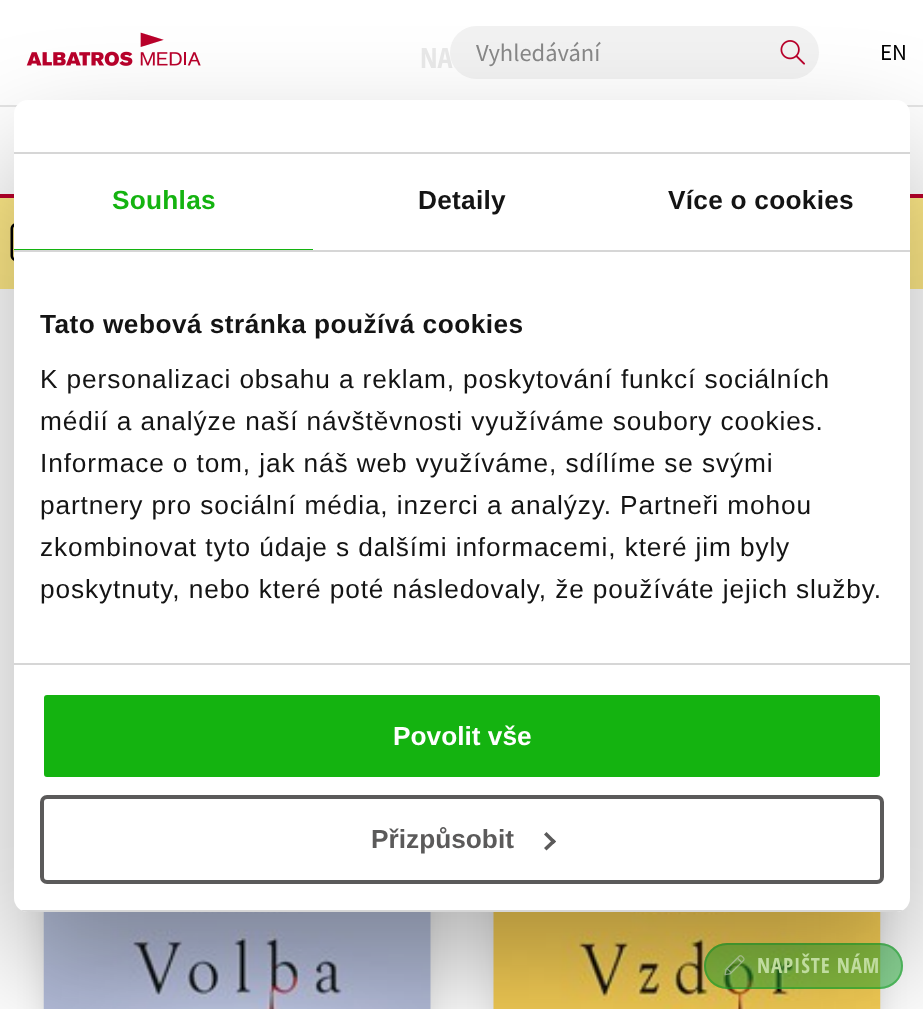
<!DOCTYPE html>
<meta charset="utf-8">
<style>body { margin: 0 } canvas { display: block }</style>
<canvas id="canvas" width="923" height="1009"></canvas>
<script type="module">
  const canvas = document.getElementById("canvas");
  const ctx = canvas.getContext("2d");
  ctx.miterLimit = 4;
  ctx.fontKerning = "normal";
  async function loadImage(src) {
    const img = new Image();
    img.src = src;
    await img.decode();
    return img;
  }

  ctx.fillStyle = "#ffffff";
  ctx.fillRect(0, 0, 923, 1009);
  ctx.fillStyle = "#e5e5e5";
  ctx.fillRect(0, 105, 923, 2);
  ctx.fillStyle = "#b9012b";
  ctx.fillRect(0, 194, 923, 4);
  ctx.fillStyle = "#f2f2f2";
  ctx.beginPath();
  ctx.roundRect(450, 26, 369, 53, 26.5);
  ctx.fill();
  ctx.font = "bold 28px Open Sans Condensed";
  ctx.fillStyle = "#e9e9e9";
  ctx.fillText("NA", 420, 68);
  ctx.drawImage(await loadImage("img1.png"), 26, 32, 175, 34);
  ctx.font = "24.5px Source Sans Pro";
  ctx.fillStyle = "#888888";
  ctx.fillText("Vyhledávání", 476, 61);
  ctx.drawImage(await loadImage("img2.png"), 780, 40, 25, 25);
  ctx.font = "23px Source Sans Pro";
  ctx.fillStyle = "#000000";
  ctx.fillText("EN", 880, 60);
  ctx.fillStyle = "#ffea88";
  ctx.fillRect(0, 198, 923, 91);
  ctx.drawImage(await loadImage("img3.png"), 10, 223, 4, 38);
  ctx.fillStyle = "rgba(0, 0, 0, 0.2)";
  ctx.filter = "blur(17.5px)";
  ctx.beginPath();
  ctx.rect(54, 880, 366, 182);
  ctx.fill();
  ctx.filter = "none";
  ctx.drawImage(await loadImage("img4.png"), 43, 912, 388, 97);
  ctx.filter = "blur(17.5px)";
  ctx.beginPath();
  ctx.rect(504, 882, 366, 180);
  ctx.fill();
  ctx.filter = "none";
  ctx.drawImage(await loadImage("img5.png"), 493, 912, 388, 97);
  ctx.fillStyle = "rgba(26, 174, 45, 0.5)";
  ctx.beginPath();
  ctx.roundRect(704, 943, 199, 46, 23);
  ctx.fill();
  ctx.beginPath();
  ctx.roundRect(705, 944, 197, 44, 22);
  ctx.strokeStyle = "rgba(26, 174, 45, 0.5)";
  ctx.lineWidth = 2;
  ctx.stroke();
  ctx.drawImage(await loadImage("img6.png"), 724, 955, 21, 21);
  ctx.fillStyle = "rgba(0, 0, 0, 0.3)";
  ctx.filter = "blur(59.5px)";
  ctx.beginPath();
  ctx.roundRect(14, 156, 896, 812, 14);
  ctx.fill();
  ctx.filter = "none";
  ctx.fillStyle = "#ffffff";
  ctx.beginPath();
  ctx.roundRect(14, 100, 896, 812, 14);
  ctx.fill();
  ctx.fillStyle = "#d6d6d6";
  ctx.fillRect(14, 152, 896, 2);
  ctx.fillRect(14, 250, 896, 2);
  ctx.fillStyle = "#14b310";
  ctx.fillRect(14, 249, 299, 1);
  ctx.letterSpacing = "0.25px";
  ctx.font = "bold 26.25px Liberation Sans";
  ctx.fillText("Souhlas", 112, 209);
  ctx.fillStyle = "#141414";
  ctx.fillText("Detaily", 418, 209);
  ctx.fillText("Více o cookies", 668, 209);
  ctx.fillStyle = "#d6d6d6";
  ctx.fillRect(14, 663, 896, 2);
  ctx.letterSpacing = "0.45px";
  ctx.fillStyle = "#141414";
  ctx.fillText("Tato webová stránka používá cookies", 40, 333);
  ctx.letterSpacing = "0.88px";
  ctx.font = "26.25px Liberation Sans";
  ctx.fillText("K personalizaci obsahu a reklam, poskytování funkcí sociálních", 40, 388);
  ctx.fillText("médií a analýze naší návštěvnosti využíváme soubory cookies.", 40, 430);
  ctx.fillText("Informace o tom, jak náš web využíváme, sdílíme se svými", 40, 472);
  ctx.fillText("partnery pro sociální média, inzerci a analýzy. Partneři mohou", 40, 514);
  ctx.fillText("zkombinovat tyto údaje s dalšími informacemi, které jim byly", 40, 556);
  ctx.fillText("poskytnuty, nebo které poté následovaly, že používáte jejich služby.", 40, 598);
  ctx.save();
  ctx.beginPath();
  ctx.roundRect(14, 100, 896, 812, 14);
  ctx.clip();
  ctx.fillStyle = "#d6d6d6";
  ctx.fillRect(14, 910, 896, 2);
  ctx.restore();
  ctx.fillStyle = "#14b310";
  ctx.beginPath();
  ctx.roundRect(42, 693, 840, 86, 5);
  ctx.fill();
  ctx.strokeStyle = "#ffffff";
  ctx.lineWidth = 4;
  ctx.stroke();
  ctx.letterSpacing = "0px";
  ctx.font = "bold 26.25px Liberation Sans";
  ctx.fillStyle = "#ffffff";
  ctx.fillText("Povolit vše", 393, 745);
  ctx.beginPath();
  ctx.roundRect(42, 797, 840, 85, 5);
  ctx.strokeStyle = "#5b5a5a";
  ctx.stroke();
  ctx.fillStyle = "#5b5a5a";
  ctx.fillText("Přizpůsobit", 371, 848);
  ctx.beginPath();
  ctx.moveTo(546.5, 832);
  ctx.lineTo(556, 841.5);
  ctx.lineTo(553.5, 844);
  ctx.lineTo(544, 834.5);
  ctx.closePath();
  ctx.fill();
  ctx.beginPath();
  ctx.moveTo(553.5, 839);
  ctx.lineTo(556, 841.5);
  ctx.lineTo(546.5, 850.5);
  ctx.lineTo(544, 848);
  ctx.closePath();
  ctx.fill();
  ctx.letterSpacing = "0.88px";
  ctx.font = "bold 21px Open Sans Condensed";
  ctx.fillStyle = "#c0dc9f";
  ctx.fillText("NAPIŠTE NÁM", 757, 973);
</script>
